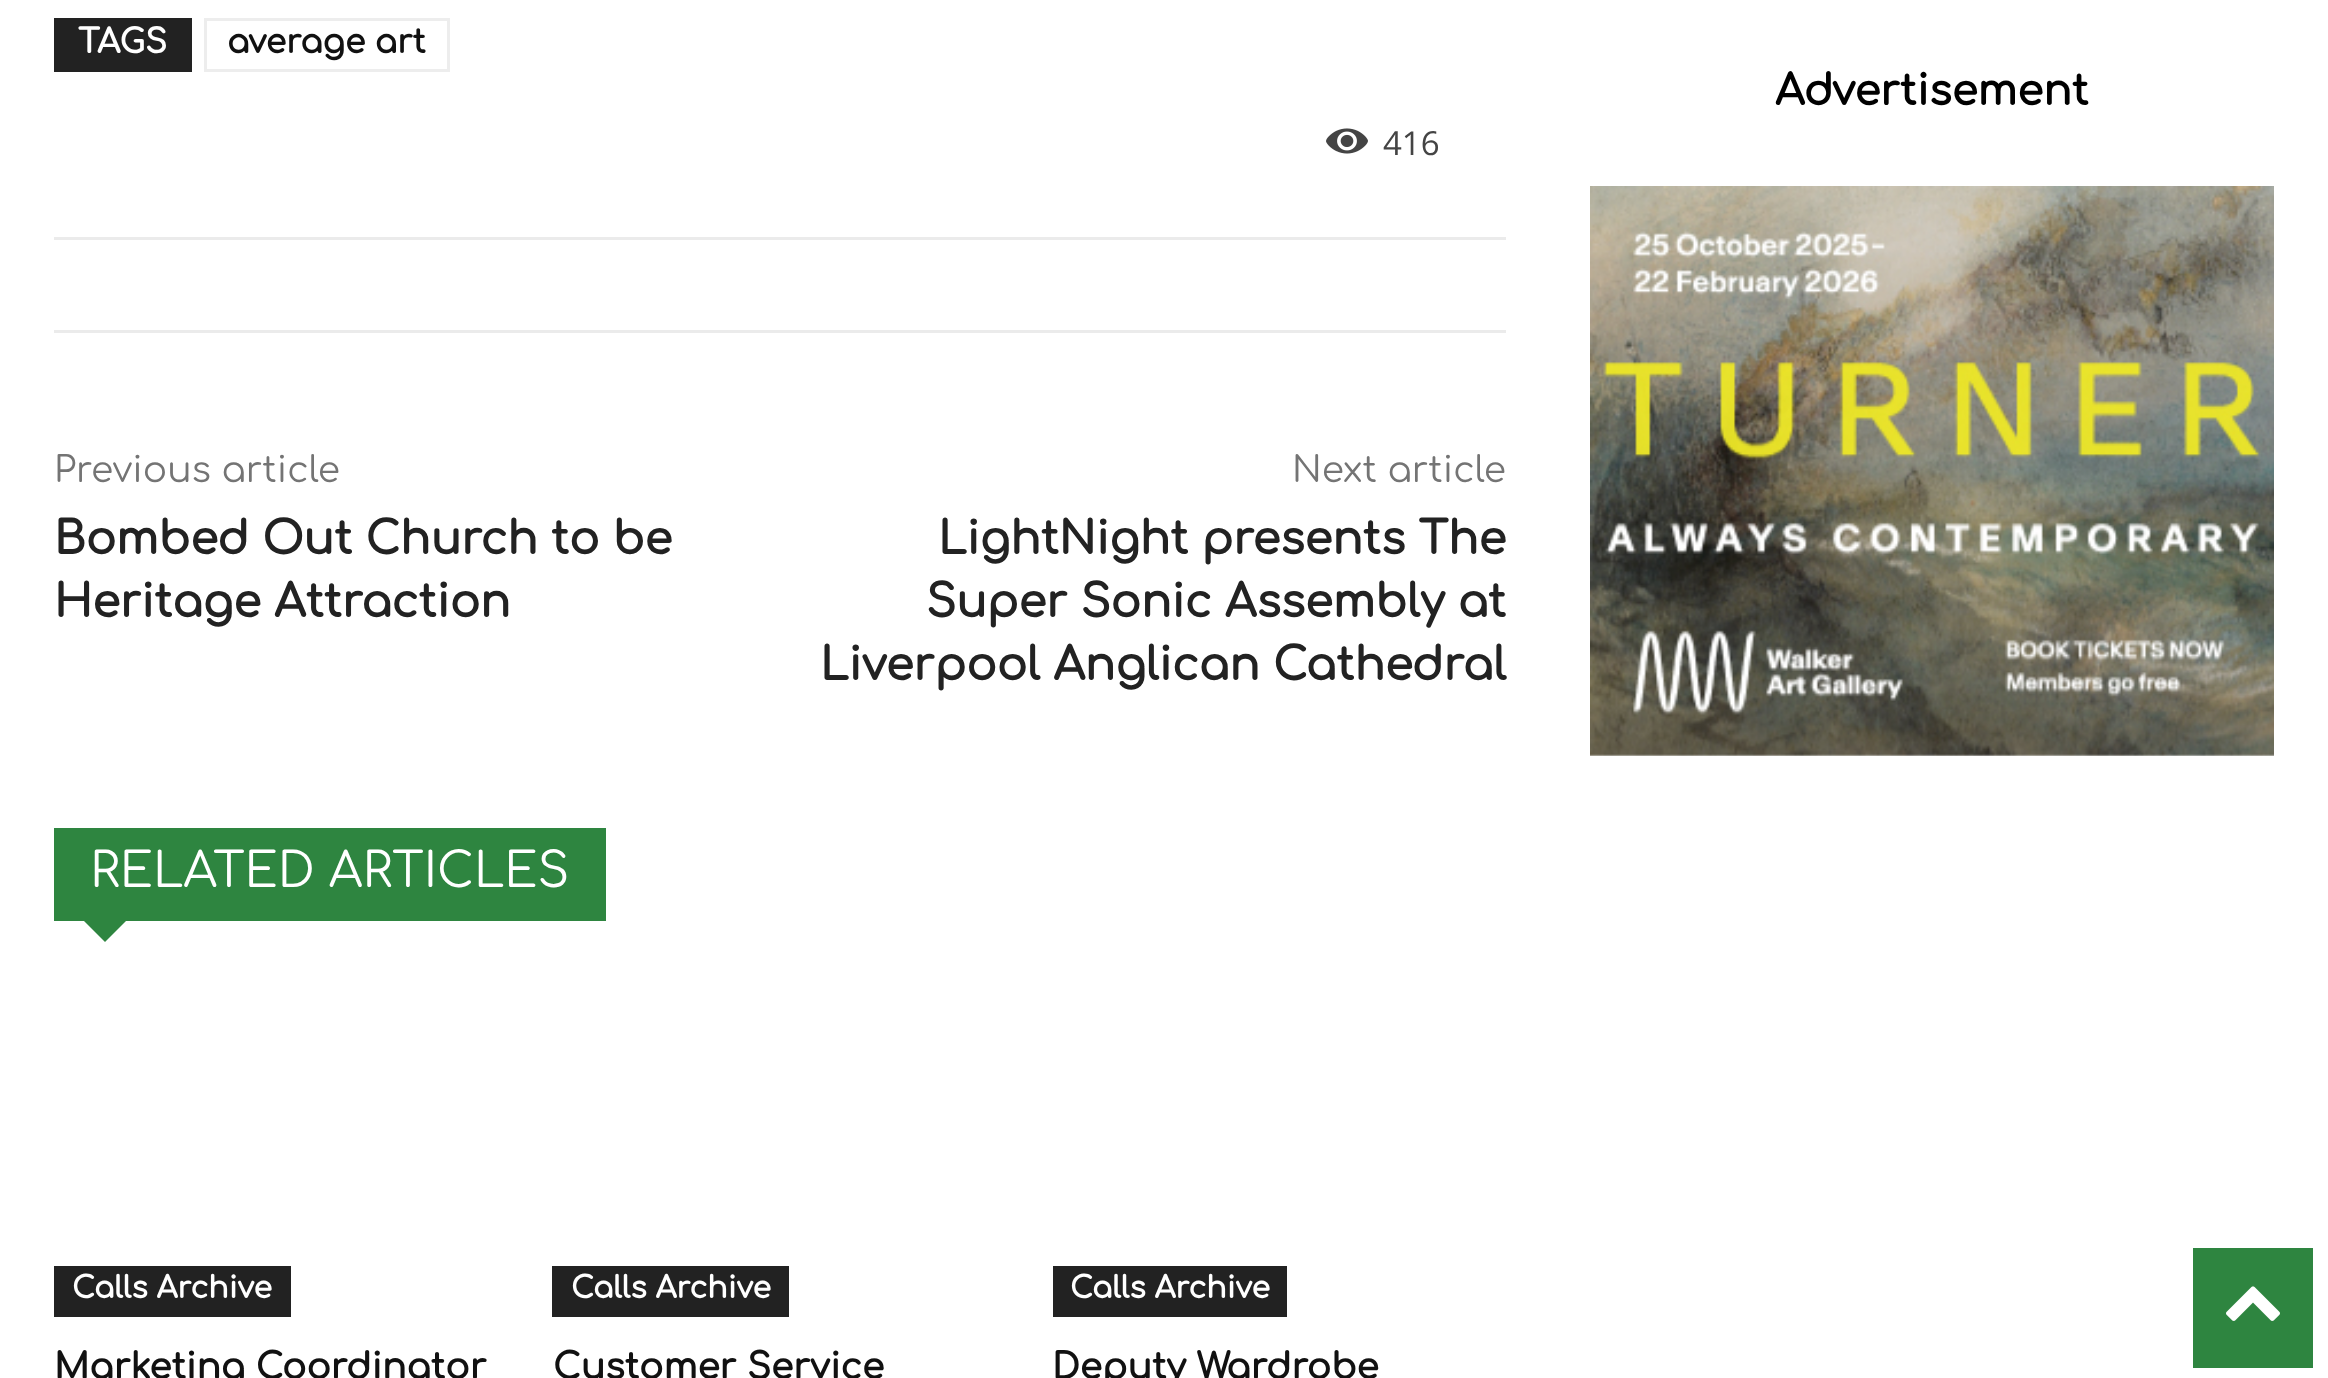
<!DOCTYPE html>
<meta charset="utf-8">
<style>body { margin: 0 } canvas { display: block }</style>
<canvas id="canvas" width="2328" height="1378"></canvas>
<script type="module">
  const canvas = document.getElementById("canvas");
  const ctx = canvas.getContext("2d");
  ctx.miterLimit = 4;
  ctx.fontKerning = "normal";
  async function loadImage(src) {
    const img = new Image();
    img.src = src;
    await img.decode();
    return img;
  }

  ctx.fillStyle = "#ffffff";
  ctx.fillRect(0, 0, 2328, 1378);
  ctx.fillStyle = "#222222";
  ctx.fillRect(54, 18, 138, 54);
  ctx.font = "bold 33px Comfortaa";
  ctx.fillStyle = "#ffffff";
  ctx.fillText("TAGS", 78, 53);
  ctx.strokeStyle = "#ededed";
  ctx.lineWidth = 3;
  ctx.strokeRect(205.5, 19.5, 243, 51);
  ctx.fillStyle = "#111111";
  ctx.fillText("average art", 227, 53);
  ctx.drawImage(await loadImage("img1.png"), 1326, 128, 42, 26);
  ctx.font = "33px Open Sans";
  ctx.fillStyle = "#444444";
  ctx.fillText("416", 1383, 155);
  ctx.fillStyle = "#ebebeb";
  ctx.fillRect(54, 237, 1452, 3);
  ctx.fillRect(54, 330, 1452, 3);
  ctx.font = "36px Comfortaa";
  ctx.fillStyle = "#747474";
  ctx.fillText("Previous article", 54, 482);
  ctx.font = "bold 45px Comfortaa";
  ctx.fillStyle = "#222222";
  ctx.fillText("Bombed Out Church to be", 54, 554);
  ctx.fillText("Heritage Attraction", 54, 617);
  ctx.font = "36px Comfortaa";
  ctx.fillStyle = "#747474";
  ctx.fillText("Next article", 1292, 482);
  ctx.font = "bold 45px Comfortaa";
  ctx.fillStyle = "#222222";
  ctx.fillText("LightNight presents The", 938, 554);
  ctx.fillText("Super Sonic Assembly at", 926, 617);
  ctx.fillText("Liverpool Anglican Cathedral", 820, 680);
  ctx.fillStyle = "#2e8540";
  ctx.fillRect(54, 828, 552, 93);
  ctx.font = "48px Comfortaa";
  ctx.fillStyle = "#ffffff";
  ctx.fillText("RELATED ARTICLES", 90, 887);
  ctx.fillStyle = "#2e8540";
  ctx.beginPath();
  ctx.moveTo(84, 921);
  ctx.lineTo(126, 921);
  ctx.lineTo(105, 942);
  ctx.closePath();
  ctx.fill();
  ctx.fillStyle = "#222222";
  ctx.fillRect(54, 1266, 237, 51);
  ctx.font = "bold 30px Comfortaa";
  ctx.fillStyle = "#ffffff";
  ctx.fillText("Calls Archive", 72, 1298);
  ctx.font = "bold 36px Comfortaa";
  ctx.fillStyle = "#111111";
  ctx.fillText("Marketing Coordinator", 54, 1379);
  ctx.fillStyle = "#222222";
  ctx.fillRect(552, 1266, 237, 51);
  ctx.font = "bold 30px Comfortaa";
  ctx.fillStyle = "#ffffff";
  ctx.fillText("Calls Archive", 571, 1298);
  ctx.font = "bold 36px Comfortaa";
  ctx.fillStyle = "#111111";
  ctx.fillText("Customer Service", 553, 1379);
  ctx.fillStyle = "#222222";
  ctx.fillRect(1053, 1266, 234, 51);
  ctx.font = "bold 30px Comfortaa";
  ctx.fillStyle = "#ffffff";
  ctx.fillText("Calls Archive", 1070, 1298);
  ctx.font = "bold 36px Comfortaa";
  ctx.fillStyle = "#111111";
  ctx.fillText("Deputy Wardrobe", 1052, 1379);
  ctx.font = "bold 42px Comfortaa";
  ctx.fillStyle = "#000000";
  ctx.fillText("Advertisement", 1775, 105);
  ctx.drawImage(await loadImage("img2.png"), 1590, 186, 684, 570);
  ctx.fillStyle = "#2e8540";
  ctx.fillRect(2193, 1248, 120, 120);
  ctx.drawImage(await loadImage("img3.png"), 2226, 1286, 54, 35);
</script>
